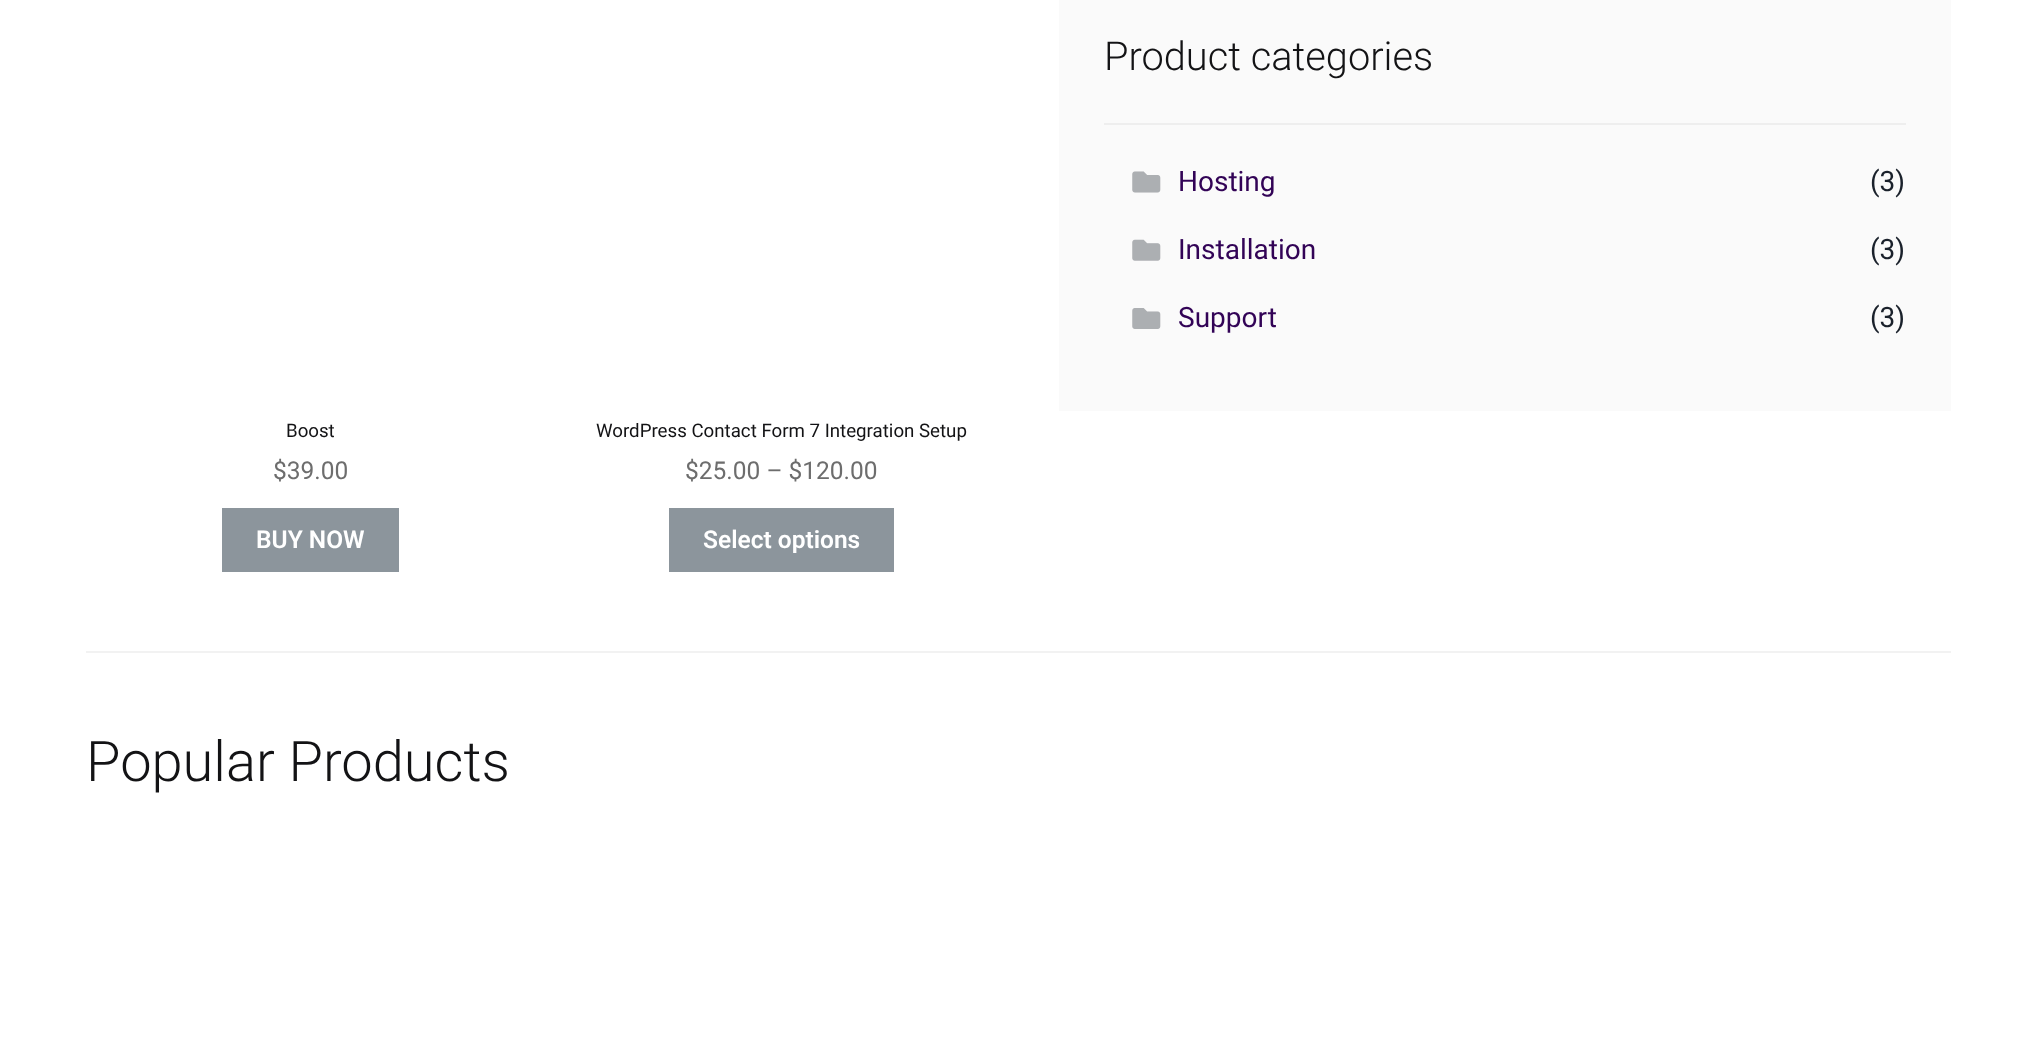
<!DOCTYPE html>
<meta charset="utf-8">
<style>body { margin: 0 } canvas { display: block }</style>
<canvas id="canvas" width="2036" height="1048"></canvas>
<script type="module">
  const canvas = document.getElementById("canvas");
  const ctx = canvas.getContext("2d");
  ctx.miterLimit = 4;
  ctx.fontKerning = "normal";
  async function loadImage(src) {
    const img = new Image();
    img.src = src;
    await img.decode();
    return img;
  }

  ctx.fillStyle = "#ffffff";
  ctx.fillRect(0, 0, 2036, 1048);
  ctx.fillStyle = "#f2f2f2";
  ctx.fillRect(86, 651, 1865, 2);
  ctx.fillStyle = "#fafafa";
  ctx.fillRect(1059, 0, 892, 411);
  ctx.fillStyle = "#eeeeee";
  ctx.fillRect(1104, 123, 802, 2);
  ctx.font = "300 39.75px Roboto";
  ctx.fillStyle = "#131315";
  ctx.fillText("Product categories", 1104, 70);
  ctx.drawImage(await loadImage("img1.png"), 1132, 171, 29, 22);
  ctx.font = "28px Roboto";
  ctx.fillStyle = "#320356";
  ctx.fillText("Hosting", 1178, 191);
  ctx.fillStyle = "#1a212b";
  ctx.fillText("(3)", 1870, 191);
  ctx.drawImage(await loadImage("img2.png"), 1132, 239, 29, 22);
  ctx.fillStyle = "#320356";
  ctx.fillText("Installation", 1178, 259);
  ctx.fillStyle = "#1a212b";
  ctx.fillText("(3)", 1870, 259);
  ctx.drawImage(await loadImage("img3.png"), 1132, 308, 29, 21);
  ctx.fillStyle = "#320356";
  ctx.fillText("Support", 1178, 327);
  ctx.fillStyle = "#1a212b";
  ctx.fillText("(3)", 1870, 327);
  ctx.font = "18.7px Roboto";
  ctx.fillStyle = "#131315";
  ctx.fillText("Boost", 286, 437);
  ctx.font = "24.5px Roboto";
  ctx.fillStyle = "#6d6d6d";
  ctx.fillText("$39.00", 273, 479);
  ctx.fillStyle = "#8c959c";
  ctx.fillRect(222, 508, 177, 64);
  ctx.font = "600 24.5px Roboto";
  ctx.fillStyle = "#ffffff";
  ctx.fillText("BUY NOW", 256, 548);
  ctx.font = "18.7px Roboto";
  ctx.fillStyle = "#131315";
  ctx.fillText("WordPress Contact Form 7 Integration Setup", 596, 437);
  ctx.font = "24.5px Roboto";
  ctx.fillStyle = "#6d6d6d";
  ctx.fillText("$25.00 – $120.00", 685, 479);
  ctx.fillStyle = "#8c959c";
  ctx.fillRect(669, 508, 225, 64);
  ctx.font = "600 24.5px Roboto";
  ctx.fillStyle = "#ffffff";
  ctx.fillText("Select options", 703, 548);
  ctx.font = "300 56px Roboto";
  ctx.fillStyle = "#131315";
  ctx.fillText("Popular Products", 86, 781);
</script>
